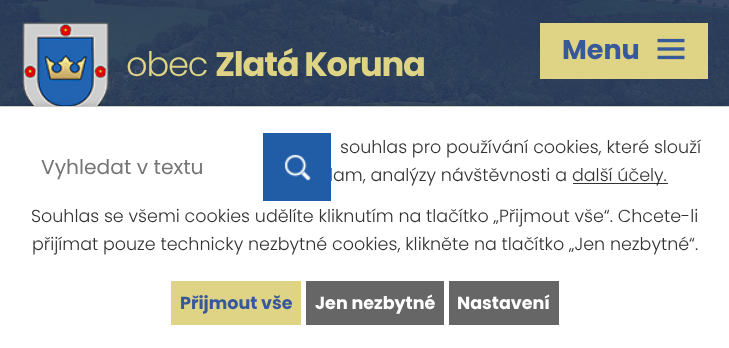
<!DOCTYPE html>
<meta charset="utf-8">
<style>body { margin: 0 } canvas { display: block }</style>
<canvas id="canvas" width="729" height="348"></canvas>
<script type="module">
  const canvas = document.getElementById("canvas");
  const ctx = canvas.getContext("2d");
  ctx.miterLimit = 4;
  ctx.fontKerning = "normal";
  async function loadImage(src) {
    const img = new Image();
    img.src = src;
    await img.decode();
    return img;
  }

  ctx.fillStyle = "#ffffff";
  ctx.fillRect(0, 0, 729, 348);
  ctx.drawImage(await loadImage("img1.png"), 0, 0, 729, 106);
  ctx.fillStyle = "rgba(44, 63, 103, 0.82)";
  ctx.fillRect(0, 0, 729, 106);
  ctx.drawImage(await loadImage("img2.png"), 22, 22, 87, 84);
  ctx.letterSpacing = "-1.25px";
  ctx.font = "300 33.75px Poppins";
  ctx.fillStyle = "#dfd486";
  ctx.fillText("obec", 126, 76);
  ctx.font = "bold 33.75px Poppins";
  ctx.fillText("Zlatá Koruna", 215, 76);
  ctx.fillStyle = "rgba(0, 0, 0, 0.2)";
  ctx.filter = "blur(3px)";
  ctx.beginPath();
  ctx.rect(0, 106, 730, 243);
  ctx.fill();
  ctx.filter = "none";
  ctx.fillStyle = "#ffffff";
  ctx.fillRect(0, 107, 729, 241);
  ctx.letterSpacing = "0px";
  ctx.font = "20.25px Poppins";
  ctx.fillStyle = "#757575";
  ctx.fillText("Vyhledat v textu", 41, 174);
  ctx.font = "300 17.5px Poppins";
  ctx.fillStyle = "#333333";
  ctx.fillText("lam, analýzy návštěvnosti a", 329, 181);
  ctx.fillStyle = "#205da6";
  ctx.fillRect(263, 133, 68, 68);
  ctx.drawImage(await loadImage("img3.png"), 284, 154, 27, 27);
  ctx.fillStyle = "#dfd486";
  ctx.fillRect(540, 23, 168, 56);
  ctx.font = "bold 27px Poppins";
  ctx.fillStyle = "#385999";
  ctx.fillText("Menu", 562, 59);
  ctx.drawImage(await loadImage("img4.png"), 657, 38, 28, 22);
  ctx.fillStyle = "#cccccc";
  ctx.fillRect(0, 106, 729, 1);
  ctx.font = "300 17.5px Poppins";
  ctx.fillStyle = "#333333";
  ctx.fillText("souhlas pro používání cookies, které slouží", 340, 153);
  ctx.fillRect(573, 183, 95, 1);
  ctx.fillText("další účely.", 572, 181);
  ctx.fillText("Souhlas se všemi cookies udělíte kliknutím na tlačítko „Přijmout vše“. Chcete-li", 31, 222);
  ctx.fillText("přijímat pouze technicky nezbytné cookies, klikněte na tlačítko „Jen nezbytné“.", 32, 250);
  ctx.fillStyle = "#dfd486";
  ctx.fillRect(171, 281, 130, 44);
  ctx.font = "bold 17.5px Poppins";
  ctx.fillStyle = "#385999";
  ctx.fillText("Přijmout vše", 180, 309);
  ctx.fillStyle = "#666666";
  ctx.fillRect(306, 281, 138, 44);
  ctx.fillStyle = "#ffffff";
  ctx.fillText("Jen nezbytné", 315, 309);
  ctx.fillStyle = "#666666";
  ctx.fillRect(449, 281, 110, 44);
  ctx.fillStyle = "#ffffff";
  ctx.fillText("Nastavení", 457, 309);
</script>
